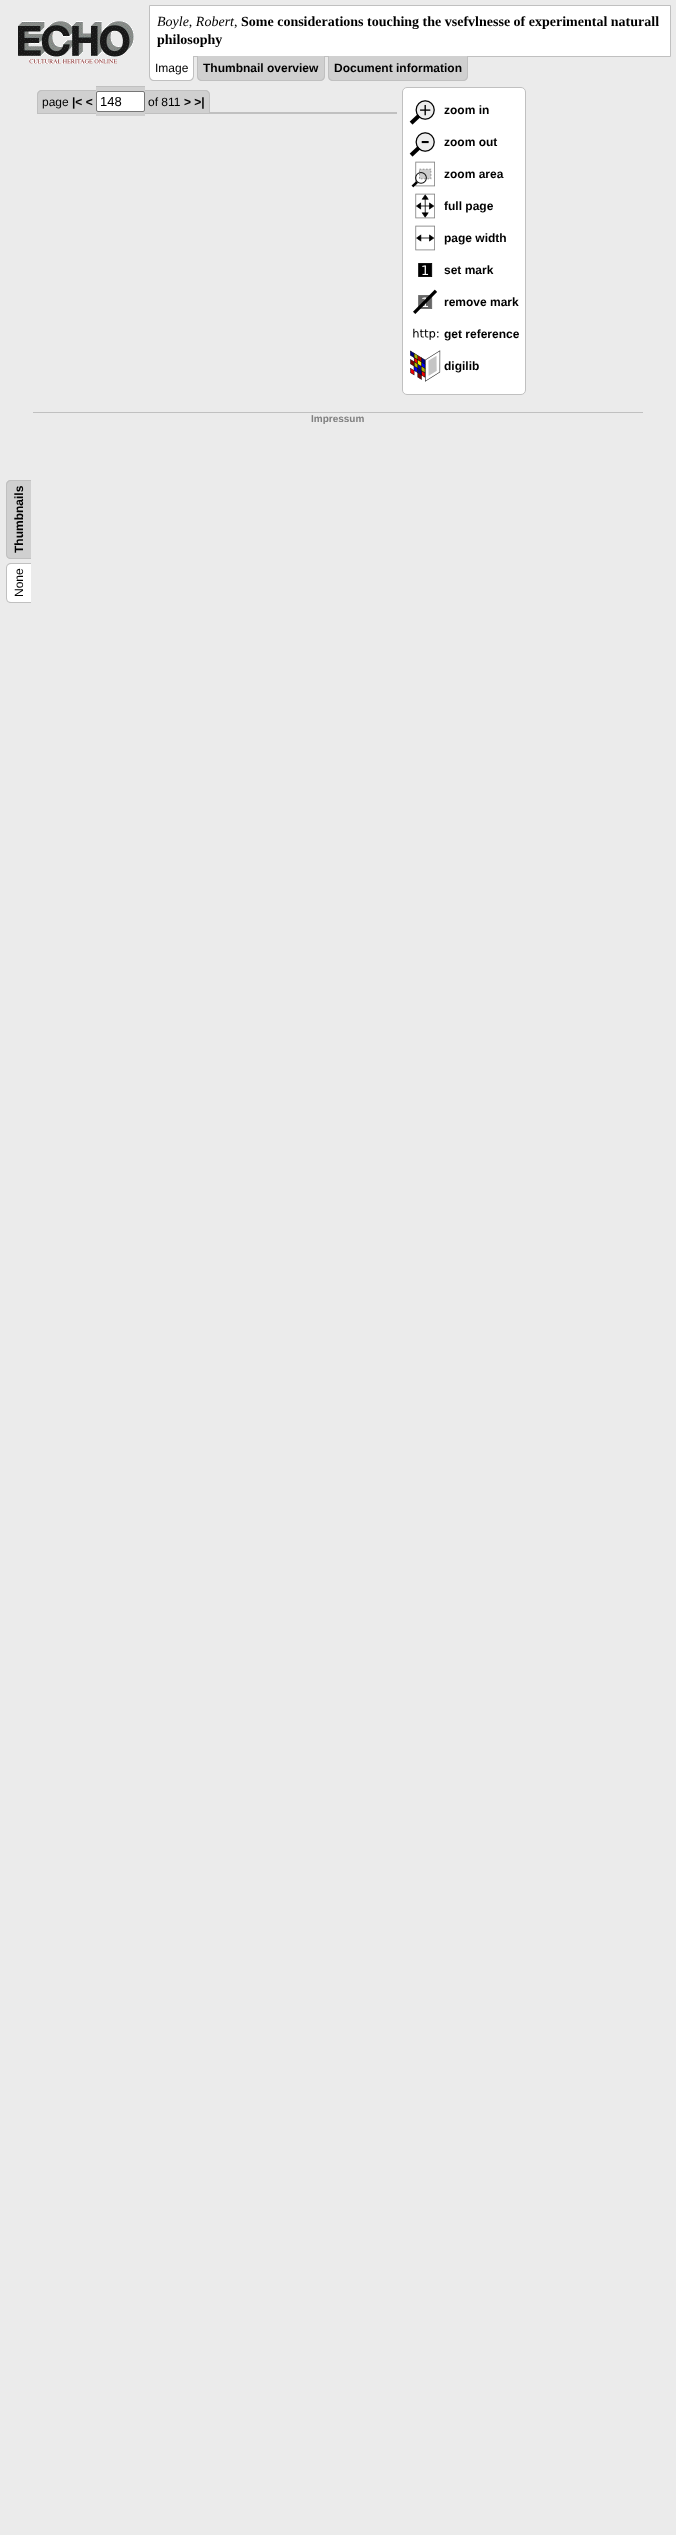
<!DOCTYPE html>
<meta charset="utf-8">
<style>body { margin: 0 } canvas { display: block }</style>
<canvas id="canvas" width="676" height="2535"></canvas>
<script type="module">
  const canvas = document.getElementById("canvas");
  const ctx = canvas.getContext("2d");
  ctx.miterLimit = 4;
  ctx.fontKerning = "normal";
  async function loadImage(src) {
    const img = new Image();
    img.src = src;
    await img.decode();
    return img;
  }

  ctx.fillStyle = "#ebebeb";
  ctx.fillRect(0, 0, 676, 2535);
  ctx.drawImage(await loadImage("img1.png"), 18, 21, 116, 43);
  ctx.fillStyle = "#ffffff";
  ctx.beginPath();
  ctx.rect(149.5, 5.5, 521, 51);
  ctx.fill();
  ctx.strokeStyle = "#c0c0c0";
  ctx.stroke();
  ctx.font = "italic 14px Liberation Serif";
  ctx.fillStyle = "#000000";
  ctx.fillText("Boyle, Robert", 157, 26);
  ctx.font = "14px Liberation Serif";
  ctx.fillText(",", 234, 26);
  ctx.font = "bold 14px Liberation Serif";
  ctx.fillText("Some considerations touching the vsefvlnesse of experimental naturall", 241, 26);
  ctx.fillText("philosophy", 157, 44);
  ctx.fillStyle = "#ffffff";
  ctx.beginPath();
  ctx.roundRect(149, 56, 45, 25, [0, 0, 5, 5]);
  ctx.fill();
  ctx.fillStyle = "#c0c0c0";
  ctx.beginPath();
  ctx.moveTo(149, 56);
  ctx.lineTo(194, 56);
  ctx.lineTo(194, 76);
  ctx.bezierCurveTo(194, 79, 192, 81, 189, 81);
  ctx.lineTo(154, 81);
  ctx.bezierCurveTo(151, 81, 149, 79, 149, 76);
  ctx.closePath();
  ctx.moveTo(150, 56);
  ctx.lineTo(193, 56);
  ctx.lineTo(193, 76);
  ctx.bezierCurveTo(193, 78, 191, 80, 189, 80);
  ctx.lineTo(154, 80);
  ctx.bezierCurveTo(152, 80, 150, 78, 150, 76);
  ctx.closePath();
  ctx.fill("evenodd");
  ctx.font = "12px Liberation Sans";
  ctx.fillStyle = "#000000";
  ctx.fillText("Image", 155, 72);
  ctx.fillStyle = "#d0d0d0";
  ctx.beginPath();
  ctx.roundRect(197, 56, 128, 25, [0, 0, 5, 5]);
  ctx.fill();
  ctx.fillStyle = "#c0c0c0";
  ctx.beginPath();
  ctx.moveTo(197, 56);
  ctx.lineTo(325, 56);
  ctx.lineTo(325, 76);
  ctx.bezierCurveTo(325, 79, 323, 81, 320, 81);
  ctx.lineTo(202, 81);
  ctx.bezierCurveTo(199, 81, 197, 79, 197, 76);
  ctx.closePath();
  ctx.moveTo(198, 56);
  ctx.lineTo(324, 56);
  ctx.lineTo(324, 76);
  ctx.bezierCurveTo(324, 78, 322, 80, 320, 80);
  ctx.lineTo(202, 80);
  ctx.bezierCurveTo(200, 80, 198, 78, 198, 76);
  ctx.closePath();
  ctx.fill("evenodd");
  ctx.font = "bold 12px Liberation Sans";
  ctx.fillStyle = "#000000";
  ctx.fillText("Thumbnail overview", 203, 72);
  ctx.fillStyle = "#d0d0d0";
  ctx.beginPath();
  ctx.roundRect(328, 56, 140, 25, [0, 0, 5, 5]);
  ctx.fill();
  ctx.fillStyle = "#c0c0c0";
  ctx.beginPath();
  ctx.moveTo(328, 56);
  ctx.lineTo(468, 56);
  ctx.lineTo(468, 76);
  ctx.bezierCurveTo(468, 79, 466, 81, 463, 81);
  ctx.lineTo(333, 81);
  ctx.bezierCurveTo(330, 81, 328, 79, 328, 76);
  ctx.closePath();
  ctx.moveTo(329, 56);
  ctx.lineTo(467, 56);
  ctx.lineTo(467, 76);
  ctx.bezierCurveTo(467, 78, 465, 80, 463, 80);
  ctx.lineTo(333, 80);
  ctx.bezierCurveTo(331, 80, 329, 78, 329, 76);
  ctx.closePath();
  ctx.fill("evenodd");
  ctx.fillStyle = "#000000";
  ctx.fillText("Document information", 334, 72);
  ctx.fillStyle = "#c0c0c0";
  ctx.fillRect(37, 112, 360, 2);
  ctx.fillStyle = "#d0d0d0";
  ctx.beginPath();
  ctx.roundRect(37, 90, 35, 23, [5, 0, 0, 0]);
  ctx.fill();
  ctx.fillStyle = "#c0c0c0";
  ctx.beginPath();
  ctx.moveTo(42, 90);
  ctx.lineTo(72, 90);
  ctx.lineTo(72, 113);
  ctx.lineTo(37, 113);
  ctx.lineTo(37, 95);
  ctx.bezierCurveTo(37, 92, 39, 90, 42, 90);
  ctx.closePath();
  ctx.moveTo(42, 91);
  ctx.lineTo(72, 91);
  ctx.lineTo(72, 113);
  ctx.lineTo(38, 113);
  ctx.lineTo(38, 95);
  ctx.bezierCurveTo(38, 93, 40, 91, 42, 91);
  ctx.closePath();
  ctx.fill("evenodd");
  ctx.fillStyle = "#d0d0d0";
  ctx.fillRect(72, 91, 10, 22);
  ctx.fillStyle = "#c0c0c0";
  ctx.fillRect(72, 90, 10, 1);
  ctx.fillStyle = "#d0d0d0";
  ctx.fillRect(82, 90, 14, 23);
  ctx.fillStyle = "#c0c0c0";
  ctx.fillRect(82, 90, 14, 1);
  ctx.fillStyle = "#d0d0d0";
  ctx.fillRect(96, 87, 49, 29);
  ctx.fillStyle = "#c0c0c0";
  ctx.fillRect(96, 86, 49, 1);
  ctx.fillStyle = "#d0d0d0";
  ctx.fillRect(145, 90, 3, 23);
  ctx.fillStyle = "#c0c0c0";
  ctx.fillRect(145, 90, 39, 1);
  ctx.fillStyle = "#d0d0d0";
  ctx.fillRect(148, 91, 36, 22);
  ctx.fillRect(184, 90, 10, 23);
  ctx.fillStyle = "#c0c0c0";
  ctx.fillRect(184, 90, 10, 1);
  ctx.fillStyle = "#d0d0d0";
  ctx.beginPath();
  ctx.roundRect(194, 90, 16, 23, [0, 5, 0, 0]);
  ctx.fill();
  ctx.fillStyle = "#c0c0c0";
  ctx.beginPath();
  ctx.moveTo(194, 90);
  ctx.lineTo(205, 90);
  ctx.bezierCurveTo(208, 90, 210, 92, 210, 95);
  ctx.lineTo(210, 113);
  ctx.lineTo(194, 113);
  ctx.closePath();
  ctx.moveTo(194, 91);
  ctx.lineTo(205, 91);
  ctx.bezierCurveTo(207, 91, 209, 93, 209, 95);
  ctx.lineTo(209, 113);
  ctx.lineTo(194, 113);
  ctx.closePath();
  ctx.fill("evenodd");
  ctx.font = "12px Liberation Sans";
  ctx.fillStyle = "#000000";
  ctx.fillText("page", 42, 106);
  ctx.font = "bold 12px Liberation Sans";
  ctx.fillText("|< <", 72, 106);
  ctx.fillStyle = "#ffffff";
  ctx.beginPath();
  ctx.roundRect(96.5, 91.5, 48, 20, 1.5);
  ctx.fill();
  ctx.strokeStyle = "#767676";
  ctx.stroke();
  ctx.font = "13px Liberation Sans";
  ctx.fillStyle = "#000000";
  ctx.fillText("148", 100, 106);
  ctx.font = "12px Liberation Sans";
  ctx.fillText("of 811", 148, 106);
  ctx.font = "bold 12px Liberation Sans";
  ctx.fillText("> >|", 184, 106);
  ctx.fillStyle = "#ffffff";
  ctx.beginPath();
  ctx.roundRect(402.5, 87.5, 123, 307, 4.5);
  ctx.fill();
  ctx.strokeStyle = "#c0c0c0";
  ctx.stroke();
  ctx.drawImage(await loadImage("img2.png"), 409, 100, 26, 25);
  ctx.fillStyle = "#000000";
  ctx.fillText("zoom in", 444, 114);
  ctx.drawImage(await loadImage("img3.png"), 409, 132, 26, 25);
  ctx.fillText("zoom out", 444, 146);
  ctx.drawImage(await loadImage("img4.png"), 411, 161, 24, 27);
  ctx.fillText("zoom area", 444, 178);
  ctx.drawImage(await loadImage("img5.png"), 415, 193, 20, 26);
  ctx.fillText("full page", 444, 210);
  ctx.drawImage(await loadImage("img6.png"), 415, 225, 20, 26);
  ctx.fillText("page width", 444, 242);
  ctx.drawImage(await loadImage("img7.png"), 418, 263, 15, 14);
  ctx.fillText("set mark", 444, 274);
  ctx.drawImage(await loadImage("img8.png"), 413, 289, 24, 25);
  ctx.fillText("remove mark", 444, 306);
  ctx.drawImage(await loadImage("img9.png"), 413, 328, 26, 12);
  ctx.fillText("get reference", 444, 338);
  ctx.drawImage(await loadImage("img10.png"), 410, 350, 31, 32);
  ctx.fillText("digilib", 444, 370);
  ctx.fillStyle = "#d0d0d0";
  ctx.beginPath();
  ctx.moveTo(6, 554);
  ctx.lineTo(6, 485);
  ctx.bezierCurveTo(6, 482, 8, 480, 11, 480);
  ctx.lineTo(31, 480);
  ctx.lineTo(31, 559);
  ctx.lineTo(11, 559);
  ctx.bezierCurveTo(8, 559, 6, 557, 6, 554);
  ctx.closePath();
  ctx.fill();
  ctx.fillStyle = "#c0c0c0";
  ctx.beginPath();
  ctx.moveTo(6, 554);
  ctx.lineTo(6, 485);
  ctx.bezierCurveTo(6, 482, 8, 480, 11, 480);
  ctx.lineTo(31, 480);
  ctx.lineTo(31, 559);
  ctx.lineTo(11, 559);
  ctx.bezierCurveTo(8, 559, 6, 557, 6, 554);
  ctx.closePath();
  ctx.moveTo(7, 554);
  ctx.lineTo(7, 485);
  ctx.bezierCurveTo(7, 483, 9, 481, 11, 481);
  ctx.lineTo(31, 481);
  ctx.lineTo(31, 558);
  ctx.lineTo(11, 558);
  ctx.bezierCurveTo(9, 558, 7, 557, 7, 554);
  ctx.closePath();
  ctx.fill("evenodd");
  ctx.fillStyle = "#000000";
  ctx.save();
  ctx.translate(23, 553);
  ctx.rotate(-90 * Math.PI / 180);
  ctx.fillText("Thumbnails", 0, 0);
  ctx.restore();
  ctx.fillStyle = "#ffffff";
  ctx.beginPath();
  ctx.moveTo(6, 598);
  ctx.lineTo(6, 568);
  ctx.bezierCurveTo(6, 565, 8, 563, 11, 563);
  ctx.lineTo(31, 563);
  ctx.lineTo(31, 603);
  ctx.lineTo(11, 603);
  ctx.bezierCurveTo(8, 603, 6, 601, 6, 598);
  ctx.closePath();
  ctx.fill();
  ctx.fillStyle = "#c0c0c0";
  ctx.beginPath();
  ctx.moveTo(6, 598);
  ctx.lineTo(6, 568);
  ctx.bezierCurveTo(6, 565, 8, 563, 11, 563);
  ctx.lineTo(31, 563);
  ctx.lineTo(31, 603);
  ctx.lineTo(11, 603);
  ctx.bezierCurveTo(8, 603, 6, 601, 6, 598);
  ctx.closePath();
  ctx.moveTo(7, 598);
  ctx.lineTo(7, 568);
  ctx.bezierCurveTo(7, 565, 9, 564, 11, 564);
  ctx.lineTo(31, 564);
  ctx.lineTo(31, 602);
  ctx.lineTo(11, 602);
  ctx.bezierCurveTo(9, 602, 7, 601, 7, 598);
  ctx.closePath();
  ctx.fill("evenodd");
  ctx.font = "12px Liberation Sans";
  ctx.fillStyle = "#000000";
  ctx.save();
  ctx.translate(23, 597);
  ctx.rotate(-90 * Math.PI / 180);
  ctx.fillText("None", 0, 0);
  ctx.restore();
  ctx.fillStyle = "#c0c0c0";
  ctx.fillRect(33, 412, 610, 1);
  ctx.font = "bold 10px Liberation Sans";
  ctx.fillStyle = "#808080";
  ctx.fillText("Impressum", 311, 422);
</script>
